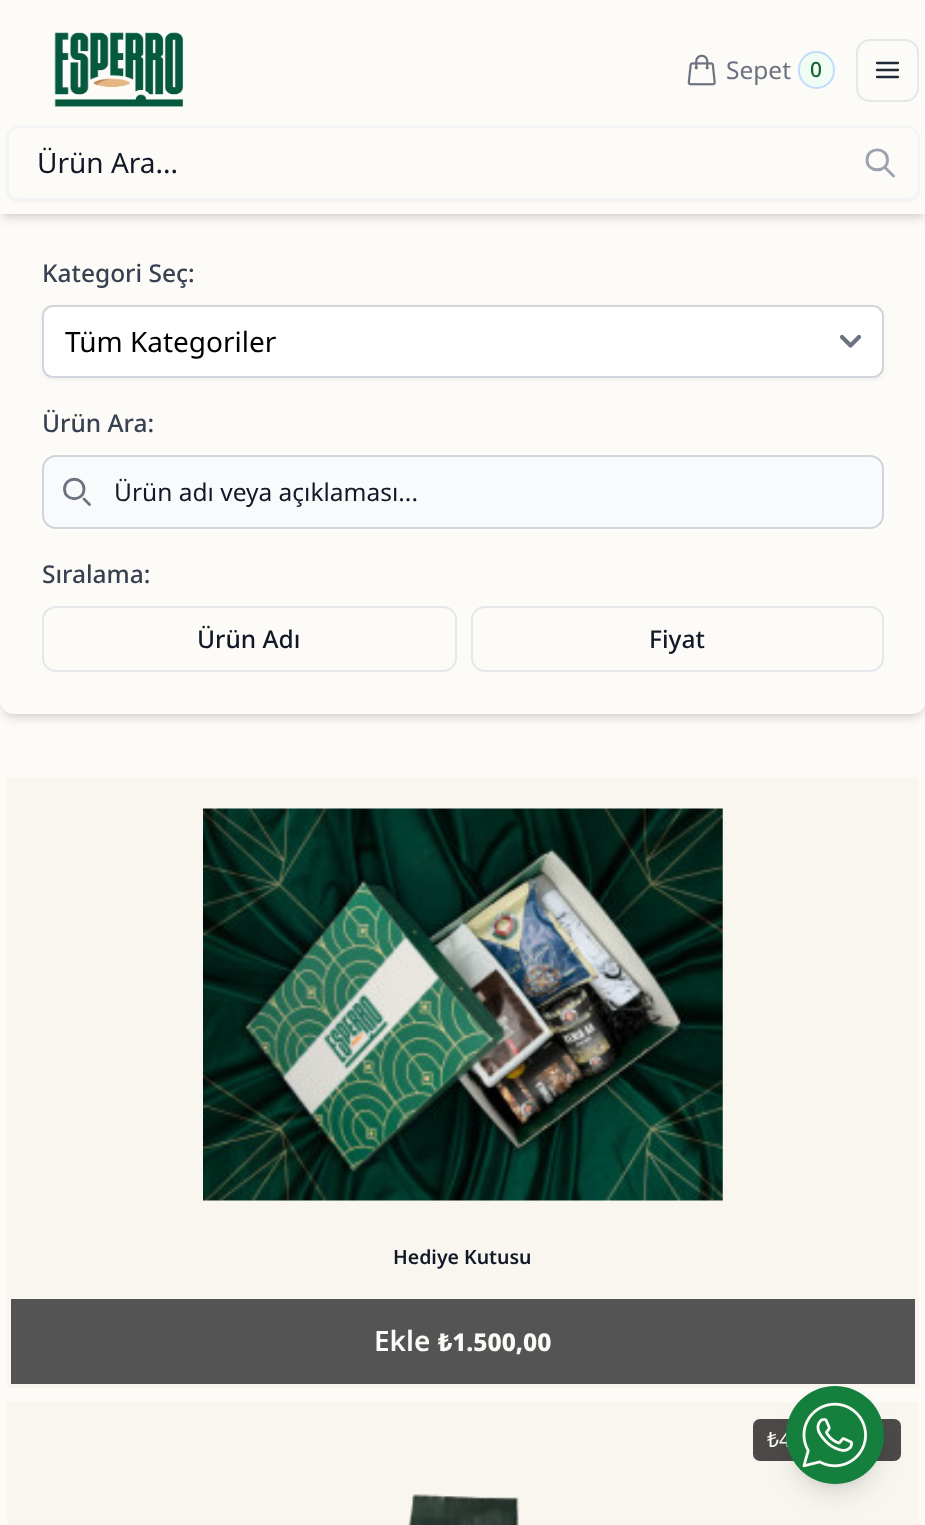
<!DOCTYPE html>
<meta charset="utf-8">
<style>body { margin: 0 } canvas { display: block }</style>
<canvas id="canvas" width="925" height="1525"></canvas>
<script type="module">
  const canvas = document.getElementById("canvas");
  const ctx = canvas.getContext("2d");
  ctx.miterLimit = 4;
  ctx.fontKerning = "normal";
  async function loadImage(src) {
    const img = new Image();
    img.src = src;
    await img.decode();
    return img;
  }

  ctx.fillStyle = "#fdfbf7";
  ctx.fillRect(0, 0, 925, 1525);
  ctx.fillStyle = "rgba(0, 0, 0, 0.1)";
  ctx.filter = "blur(3.5px)";
  ctx.beginPath();
  ctx.roundRect(4, 221, 918, 493, 11);
  ctx.fill();
  ctx.filter = "none";
  ctx.filter = "blur(5px)";
  ctx.beginPath();
  ctx.roundRect(2, 222, 922, 497, 12);
  ctx.fill();
  ctx.filter = "none";
  ctx.fillStyle = "#fdfbf7";
  ctx.beginPath();
  ctx.roundRect(0, 214, 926, 500, 14);
  ctx.fill();
  ctx.fillStyle = "rgba(0, 0, 0, 0.1)";
  ctx.filter = "blur(3.5px)";
  ctx.beginPath();
  ctx.rect(4, 7, 918, 207);
  ctx.fill();
  ctx.filter = "none";
  ctx.filter = "blur(5px)";
  ctx.beginPath();
  ctx.rect(2, 9, 922, 210);
  ctx.fill();
  ctx.filter = "none";
  ctx.fillStyle = "#fdfbf7";
  ctx.fillRect(0, 1, 925, 213);
  ctx.drawImage(await loadImage("img1.png"), 54, 32, 130, 75);
  ctx.drawImage(await loadImage("img2.png"), 687, 54, 29, 32);
  ctx.font = "24.5px Noto Sans";
  ctx.fillStyle = "#6b7280";
  ctx.fillText("Sepet", 726, 79);
  ctx.fillStyle = "#f0fdf4";
  ctx.beginPath();
  ctx.roundRect(799, 52, 35, 36, 17.5);
  ctx.fill();
  ctx.strokeStyle = "#bfdbfe";
  ctx.lineWidth = 2;
  ctx.stroke();
  ctx.font = "500 21px Noto Sans";
  ctx.fillStyle = "#166534";
  ctx.fillText("0", 810, 77);
  ctx.beginPath();
  ctx.roundRect(857, 40, 61, 61, 13);
  ctx.strokeStyle = "#e5e7eb";
  ctx.stroke();
  ctx.beginPath();
  ctx.moveTo(877, 63);
  ctx.lineTo(898, 63);
  ctx.moveTo(877, 70);
  ctx.lineTo(898, 70);
  ctx.moveTo(877, 77);
  ctx.lineTo(898, 77);
  ctx.strokeStyle = "#1f2937";
  ctx.lineWidth = 2.3;
  ctx.lineCap = "round";
  ctx.lineJoin = "round";
  ctx.stroke();
  ctx.fillStyle = "rgba(0, 0, 0, 0.05)";
  ctx.filter = "blur(2px)";
  ctx.beginPath();
  ctx.roundRect(7, 128, 912, 73, 11);
  ctx.fill();
  ctx.filter = "none";
  ctx.fillStyle = "#fdfbf7";
  ctx.beginPath();
  ctx.roundRect(8, 127, 910, 72, 10);
  ctx.fill();
  ctx.strokeStyle = "#f3f4f6";
  ctx.lineWidth = 2;
  ctx.lineJoin = "miter";
  ctx.stroke();
  ctx.font = "28px Noto Sans";
  ctx.fillStyle = "#111827";
  ctx.fillText("Ürün Ara...", 37, 173);
  ctx.beginPath();
  ctx.moveTo(893.5, 176);
  ctx.lineTo(884.5, 167);
  ctx.moveTo(887.5, 160);
  ctx.bezierCurveTo(887.5, 173, 867, 173, 867, 160);
  ctx.bezierCurveTo(867, 146.5, 887.5, 146.5, 887.5, 160);
  ctx.closePath();
  ctx.strokeStyle = "#9ca3af";
  ctx.lineWidth = 2.9;
  ctx.lineJoin = "round";
  ctx.stroke();
  ctx.font = "500 24.5px Noto Sans";
  ctx.fillStyle = "#374151";
  ctx.fillText("Kategori Seç:", 42, 282);
  ctx.fillStyle = "rgba(0, 0, 0, 0.05)";
  ctx.filter = "blur(2px)";
  ctx.beginPath();
  ctx.roundRect(42, 306, 842, 74, 11);
  ctx.fill();
  ctx.filter = "none";
  ctx.fillStyle = "#ffffff";
  ctx.beginPath();
  ctx.roundRect(42, 305, 842, 73, 11);
  ctx.fill();
  ctx.beginPath();
  ctx.moveTo(842, 337);
  ctx.lineTo(850.5, 345.5);
  ctx.lineTo(859, 337);
  ctx.strokeStyle = "#6b7280";
  ctx.lineWidth = 4.2;
  ctx.stroke();
  ctx.beginPath();
  ctx.roundRect(43, 306, 840, 71, 10);
  ctx.strokeStyle = "#d1d5db";
  ctx.lineWidth = 2;
  ctx.lineJoin = "miter";
  ctx.stroke();
  ctx.font = "28px Noto Sans";
  ctx.fillStyle = "#000000";
  ctx.fillText("Tüm Kategoriler", 65, 352);
  ctx.font = "500 24.5px Noto Sans";
  ctx.fillStyle = "#374151";
  ctx.fillText("Ürün Ara:", 42, 432);
  ctx.fillStyle = "#f9fafb";
  ctx.beginPath();
  ctx.roundRect(43, 456, 840, 72, 13);
  ctx.fill();
  ctx.stroke();
  ctx.beginPath();
  ctx.moveTo(89.5, 504.5);
  ctx.lineTo(84, 499);
  ctx.moveTo(84, 489);
  ctx.bezierCurveTo(84, 502, 64.5, 502, 64.5, 489);
  ctx.bezierCurveTo(64.5, 476, 84, 476, 84, 489);
  ctx.closePath();
  ctx.strokeStyle = "#6b7280";
  ctx.lineWidth = 2.8;
  ctx.lineJoin = "round";
  ctx.stroke();
  ctx.font = "24.5px Noto Sans";
  ctx.fillStyle = "#111827";
  ctx.fillText("Ürün adı veya açıklaması...", 114, 501);
  ctx.font = "500 24.5px Noto Sans";
  ctx.fillStyle = "#374151";
  ctx.fillText("Sıralama:", 42, 583);
  ctx.beginPath();
  ctx.roundRect(43, 607, 413, 64, 13);
  ctx.strokeStyle = "#e5e7eb";
  ctx.lineWidth = 2;
  ctx.lineJoin = "miter";
  ctx.stroke();
  ctx.fillStyle = "#111827";
  ctx.fillText("Ürün Adı", 197, 648);
  ctx.beginPath();
  ctx.roundRect(472, 607, 411, 64, 13);
  ctx.stroke();
  ctx.fillText("Fiyat", 649, 648);
  ctx.fillStyle = "#f9f6f0";
  ctx.fillRect(7, 777, 912, 611);
  ctx.drawImage(await loadImage("img3.png"), 203, 808, 520, 393);
  ctx.font = "600 19.5px Noto Sans";
  ctx.fillStyle = "#111827";
  ctx.fillText("Hediye Kutusu", 393, 1264);
  ctx.fillStyle = "#545454";
  ctx.fillRect(11, 1299, 904, 85);
  ctx.font = "600 28px Noto Sans";
  ctx.fillStyle = "#fdfbf7";
  ctx.fillText("Ekle", 374, 1351);
  ctx.font = "800 24.5px Noto Sans";
  ctx.fillText("₺1.500,00", 438, 1351);
  ctx.fillStyle = "#f9f6f0";
  ctx.fillRect(7, 1402, 912, 123);
  ctx.fillStyle = "#4b4a48";
  ctx.beginPath();
  ctx.roundRect(753, 1419, 148, 42, 7);
  ctx.fill();
  ctx.font = "21px Noto Sans";
  ctx.fillStyle = "#fdfbf7";
  ctx.fillText("₺4", 767, 1447);
  ctx.drawImage(await loadImage("img4.png"), 408, 1494, 111, 31);
  ctx.fillStyle = "rgba(0, 0, 0, 0.1)";
  ctx.filter = "blur(5px)";
  ctx.beginPath();
  ctx.roundRect(793, 1400, 84, 84, 42);
  ctx.fill();
  ctx.filter = "none";
  ctx.filter = "blur(13px)";
  ctx.beginPath();
  ctx.roundRect(791, 1409, 88, 87, 43.5);
  ctx.fill();
  ctx.filter = "none";
  ctx.fillStyle = "#15803d";
  ctx.beginPath();
  ctx.arc(835, 1435, 49, 0, Math.PI * 2);
  ctx.fill();
  ctx.drawImage(await loadImage("img5.png"), 802, 1402, 65, 66);
</script>
